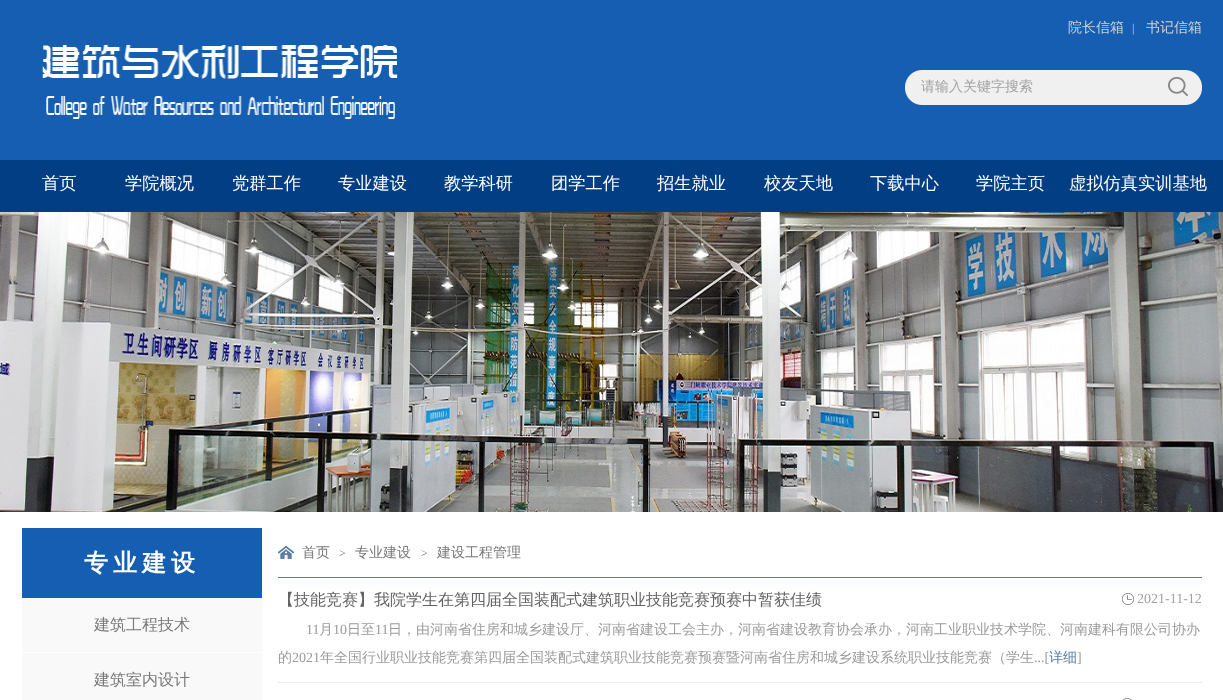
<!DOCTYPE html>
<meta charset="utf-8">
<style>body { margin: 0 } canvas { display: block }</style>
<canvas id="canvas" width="1223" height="700"></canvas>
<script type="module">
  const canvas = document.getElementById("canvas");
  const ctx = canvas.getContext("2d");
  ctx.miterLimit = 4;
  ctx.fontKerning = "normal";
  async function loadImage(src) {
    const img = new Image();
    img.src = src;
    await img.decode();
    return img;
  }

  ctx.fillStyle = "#ffffff";
  ctx.fillRect(0, 0, 1223, 700);
  ctx.fillStyle = "#165eb2";
  ctx.fillRect(0, 0, 1223, 160);
  ctx.drawImage(await loadImage("img1.png"), 42, 45, 356, 74);
  ctx.font = "500 14px WenQuanYi Zen Hei";
  ctx.fillStyle = "#d1d1d1";
  ctx.fillText("院长信箱", 1068, 32);
  ctx.font = "12px Liberation Serif";
  ctx.fillText("|", 1132, 32);
  ctx.font = "500 14px WenQuanYi Zen Hei";
  ctx.fillText("书记信箱", 1146, 32);
  ctx.drawImage(await loadImage("img2.png"), 905, 70, 297, 35);
  ctx.fillStyle = "#a2a2a2";
  ctx.fillText("请输入关键字搜索", 921, 91);
  ctx.drawImage(await loadImage("img3.png"), 1168, 77, 20, 19);
  ctx.fillStyle = "#023e84";
  ctx.fillRect(0, 160, 1223, 52);
  ctx.font = "500 17.25px WenQuanYi Zen Hei";
  ctx.fillStyle = "#ffffff";
  ctx.fillText("首页", 42, 189);
  ctx.fillText("学院概况", 125, 189);
  ctx.fillText("党群工作", 232, 189);
  ctx.fillText("专业建设", 338, 189);
  ctx.fillText("教学科研", 444, 189);
  ctx.fillText("团学工作", 551, 189);
  ctx.fillText("招生就业", 657, 189);
  ctx.fillText("校友天地", 764, 189);
  ctx.fillText("下载中心", 870, 189);
  ctx.fillText("学院主页", 976, 189);
  ctx.fillText("虚拟仿真实训基地", 1069, 189);
  ctx.drawImage(await loadImage("img4.png"), 0, 212, 1223, 300);
  ctx.fillStyle = "#165eb2";
  ctx.fillRect(22, 528, 240, 70);
  ctx.letterSpacing = "5px";
  ctx.font = "bold 24px WenQuanYi Zen Hei";
  ctx.fillStyle = "#ffffff";
  ctx.fillText("专业建设", 84, 571);
  ctx.fillStyle = "#f9f9f9";
  ctx.fillRect(22, 598, 240, 102);
  ctx.fillStyle = "#ffffff";
  ctx.fillRect(22, 652, 240, 1);
  ctx.letterSpacing = "0px";
  ctx.font = "500 16px WenQuanYi Zen Hei";
  ctx.fillStyle = "#787878";
  ctx.fillText("建筑工程技术", 94, 630);
  ctx.fillText("建筑室内设计", 94, 685);
  ctx.fillStyle = "#5a7fa1";
  ctx.fillRect(278, 577, 924, 1);
  ctx.drawImage(await loadImage("img5.png"), 278, 546, 16, 13);
  ctx.font = "500 14px WenQuanYi Zen Hei";
  ctx.fillStyle = "#787878";
  ctx.fillText("首页", 302, 557);
  ctx.font = "12px Liberation Serif";
  ctx.fillText(">", 339, 557);
  ctx.font = "500 14px WenQuanYi Zen Hei";
  ctx.fillText("专业建设", 355, 557);
  ctx.font = "12px Liberation Serif";
  ctx.fillText(">", 421, 557);
  ctx.font = "500 14px WenQuanYi Zen Hei";
  ctx.fillText("建设工程管理", 437, 557);
  ctx.fillStyle = "#ededed";
  ctx.fillRect(278, 682, 924, 1);
  ctx.font = "500 16px WenQuanYi Zen Hei";
  ctx.fillStyle = "#636363";
  ctx.fillText("【技能竞赛】我院学生在第四届全国装配式建筑职业技能竞赛预赛中暂获佳绩", 278, 605);
  ctx.drawImage(await loadImage("img6.png"), 1122, 593, 12, 12);
  ctx.font = "14px Liberation Serif";
  ctx.fillStyle = "#a2a2a2";
  ctx.fillText("2021-11-12", 1137, 603);
  ctx.fillStyle = "#9b9b9b";
  ctx.fillText("11", 306, 634);
  ctx.font = "500 14px WenQuanYi Zen Hei";
  ctx.fillText("月", 319, 634);
  ctx.font = "14px Liberation Serif";
  ctx.fillText("10", 333, 634);
  ctx.font = "500 14px WenQuanYi Zen Hei";
  ctx.fillText("日至", 347, 634);
  ctx.font = "14px Liberation Serif";
  ctx.fillText("11", 375, 634);
  ctx.font = "500 14px WenQuanYi Zen Hei";
  ctx.fillText("日，由河南省住房和城乡建设厅、河南省建设工会主办，河南省建设教育协会承办，河南工业职业技术学院、河南建科有限公司协办", 388, 634);
  ctx.fillText("的", 278, 662);
  ctx.font = "14px Liberation Serif";
  ctx.fillText("2021", 292, 662);
  ctx.font = "500 14px WenQuanYi Zen Hei";
  ctx.fillText("年全国行业职业技能竞赛第四届全国装配式建筑职业技能竞赛预赛暨河南省住房和城乡建设系统职业技能竞赛（学生", 320, 662);
  ctx.font = "14px Liberation Serif";
  ctx.fillText("...[", 1034, 662);
  ctx.font = "500 14px WenQuanYi Zen Hei";
  ctx.fillStyle = "#5a7fa1";
  ctx.fillText("详细", 1049, 662);
  ctx.font = "14px Liberation Serif";
  ctx.fillStyle = "#9b9b9b";
  ctx.fillText("]", 1077, 662);
  ctx.drawImage(await loadImage("img7.png"), 1122, 698, 10, 2);
</script>
